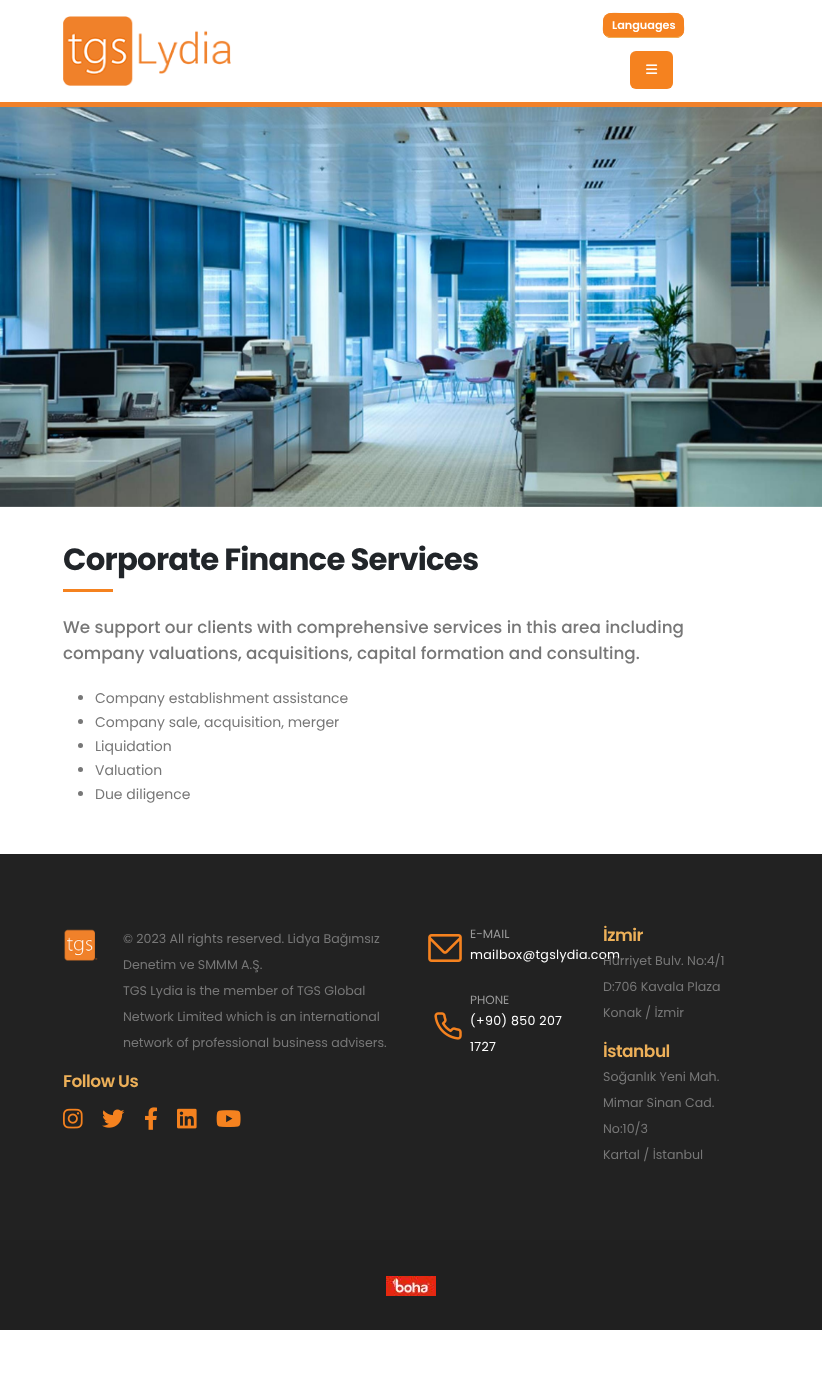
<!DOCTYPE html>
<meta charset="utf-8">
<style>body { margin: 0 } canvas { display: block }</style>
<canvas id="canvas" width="822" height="1396"></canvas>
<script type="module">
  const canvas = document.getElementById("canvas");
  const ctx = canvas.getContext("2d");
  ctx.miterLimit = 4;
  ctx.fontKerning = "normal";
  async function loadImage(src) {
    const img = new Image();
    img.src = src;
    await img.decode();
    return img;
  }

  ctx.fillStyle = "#ffffff";
  ctx.fillRect(0, 0, 822, 1396);
  ctx.drawImage(await loadImage("img1.png"), 63, 16, 168, 70);
  ctx.fillStyle = "#f5821f";
  ctx.beginPath();
  ctx.roundRect(603, 13, 81, 25, 8);
  ctx.fill();
  ctx.beginPath();
  ctx.moveTo(681.5, 35.5);
  ctx.bezierCurveTo(680, 36.5, 678, 37.5, 676, 37.5);
  ctx.lineTo(611, 37.5);
  ctx.bezierCurveTo(609, 37.5, 607, 36.5, 605.5, 35.5);
  ctx.strokeStyle = "#edb059";
  ctx.stroke();
  ctx.beginPath();
  ctx.moveTo(605.5, 35.5);
  ctx.bezierCurveTo(602.5, 32.5, 603.5, 28, 603.5, 24);
  ctx.bezierCurveTo(603.5, 11.5, 611, 13.5, 622, 13.5);
  ctx.lineTo(665, 13.5);
  ctx.bezierCurveTo(676, 13.5, 683.5, 11.5, 683.5, 24);
  ctx.bezierCurveTo(683.5, 28, 684.5, 32.5, 681.5, 35.5);
  ctx.strokeStyle = "#f5821f";
  ctx.stroke();
  ctx.font = "600 11.25px Poppins";
  ctx.fillStyle = "#ffffff";
  ctx.fillText("Languages", 612, 29);
  ctx.fillStyle = "#f5821f";
  ctx.beginPath();
  ctx.roundRect(630, 51, 43, 38, 6);
  ctx.fill();
  ctx.drawImage(await loadImage("img2.png"), 646, 64, 12, 10);
  ctx.fillStyle = "#f0812a";
  ctx.fillRect(0, 102, 822, 5);
  ctx.drawImage(await loadImage("img3.png"), 0, 107, 822, 400);
  ctx.letterSpacing = "-0.75px";
  ctx.font = "bold 30.75px Poppins";
  ctx.fillStyle = "#212529";
  ctx.fillText("Corporate Finance Services", 63, 570);
  ctx.fillStyle = "#f5821f";
  ctx.fillRect(63, 589, 50, 3);
  ctx.letterSpacing = "0px";
  ctx.font = "500 16.8px Poppins";
  ctx.fillStyle = "#777777";
  ctx.fillText("We support our clients with comprehensive services in this area including", 63, 633);
  ctx.fillText("company valuations, acquisitions, capital formation and consulting.", 63, 659);
  ctx.beginPath();
  ctx.arc(80.5, 697.5, 2.5, 0, Math.PI * 2);
  ctx.fill();
  ctx.font = "14px Poppins";
  ctx.fillText("Company establishment assistance", 95, 703);
  ctx.beginPath();
  ctx.arc(80.5, 721.5, 2.5, 0, Math.PI * 2);
  ctx.fill();
  ctx.fillText("Company sale, acquisition, merger", 95, 727);
  ctx.beginPath();
  ctx.arc(80.5, 745.5, 2.5, 0, Math.PI * 2);
  ctx.fill();
  ctx.fillText("Liquidation", 95, 751);
  ctx.beginPath();
  ctx.arc(80.5, 769.5, 2.5, 0, Math.PI * 2);
  ctx.fill();
  ctx.fillText("Valuation", 95, 775);
  ctx.beginPath();
  ctx.arc(80.5, 793.5, 2.5, 0, Math.PI * 2);
  ctx.fill();
  ctx.fillText("Due diligence", 95, 799);
  ctx.fillStyle = "#222222";
  ctx.fillRect(0, 854, 822, 386);
  ctx.drawImage(await loadImage("img4.png"), 64, 929, 34, 32);
  ctx.font = "12.6px Poppins";
  ctx.fillStyle = "#777777";
  ctx.fillText("© 2023 All rights reserved. Lidya Bağımsız", 123, 943);
  ctx.fillText("Denetim ve SMMM A.Ş.", 123, 969);
  ctx.fillText("TGS Lydia is the member of TGS Global", 123, 995);
  ctx.fillText("Network Limited which is an international", 123, 1021);
  ctx.fillText("network of professional business advisers.", 123, 1047);
  ctx.letterSpacing = "-0.5px";
  ctx.font = "600 17px Poppins";
  ctx.fillStyle = "#edb059";
  ctx.fillText("Follow Us", 63, 1087);
  ctx.drawImage(await loadImage("img5.png"), 63, 1108, 20, 21);
  ctx.drawImage(await loadImage("img6.png"), 102, 1109, 23, 19);
  ctx.drawImage(await loadImage("img7.png"), 145, 1107, 12, 23);
  ctx.drawImage(await loadImage("img8.png"), 177, 1108, 20, 21);
  ctx.drawImage(await loadImage("img9.png"), 216, 1110, 25, 17);
  ctx.drawImage(await loadImage("img10.png"), 428, 934, 34, 28);
  ctx.letterSpacing = "0px";
  ctx.font = "12px Poppins";
  ctx.fillStyle = "#999999";
  ctx.fillText("E-MAIL", 470, 938);
  ctx.letterSpacing = "0.3px";
  ctx.font = "12.6px Poppins";
  ctx.fillStyle = "#ffffff";
  ctx.fillText("mailbox@tgslydia.com", 470, 959);
  ctx.drawImage(await loadImage("img11.png"), 434, 1012, 28, 28);
  ctx.letterSpacing = "0px";
  ctx.font = "12px Poppins";
  ctx.fillStyle = "#999999";
  ctx.fillText("PHONE", 470, 1004);
  ctx.letterSpacing = "0.3px";
  ctx.font = "12.6px Poppins";
  ctx.fillStyle = "#ffffff";
  ctx.fillText("(+90) 850 207", 470, 1025);
  ctx.fillText("1727", 470, 1051);
  ctx.letterSpacing = "-0.5px";
  ctx.font = "600 17px Poppins";
  ctx.fillStyle = "#edb059";
  ctx.fillText("İzmir", 603, 941);
  ctx.letterSpacing = "0px";
  ctx.font = "12.6px Poppins";
  ctx.fillStyle = "#777777";
  ctx.fillText("Hürriyet Bulv. No:4/1", 603, 965);
  ctx.fillText("D:706 Kavala Plaza", 603, 991);
  ctx.fillText("Konak / İzmir", 603, 1017);
  ctx.letterSpacing = "-0.5px";
  ctx.font = "600 17px Poppins";
  ctx.fillStyle = "#edb059";
  ctx.fillText("İstanbul", 603, 1057);
  ctx.letterSpacing = "0px";
  ctx.font = "12.6px Poppins";
  ctx.fillStyle = "#777777";
  ctx.fillText("Soğanlık Yeni Mah.", 603, 1081);
  ctx.fillText("Mimar Sinan Cad.", 603, 1107);
  ctx.fillText("No:10/3", 603, 1133);
  ctx.fillText("Kartal / İstanbul", 603, 1159);
  ctx.fillStyle = "#202020";
  ctx.fillRect(0, 1240, 822, 90);
  ctx.drawImage(await loadImage("img12.png"), 386, 1276, 50, 20);
</script>
